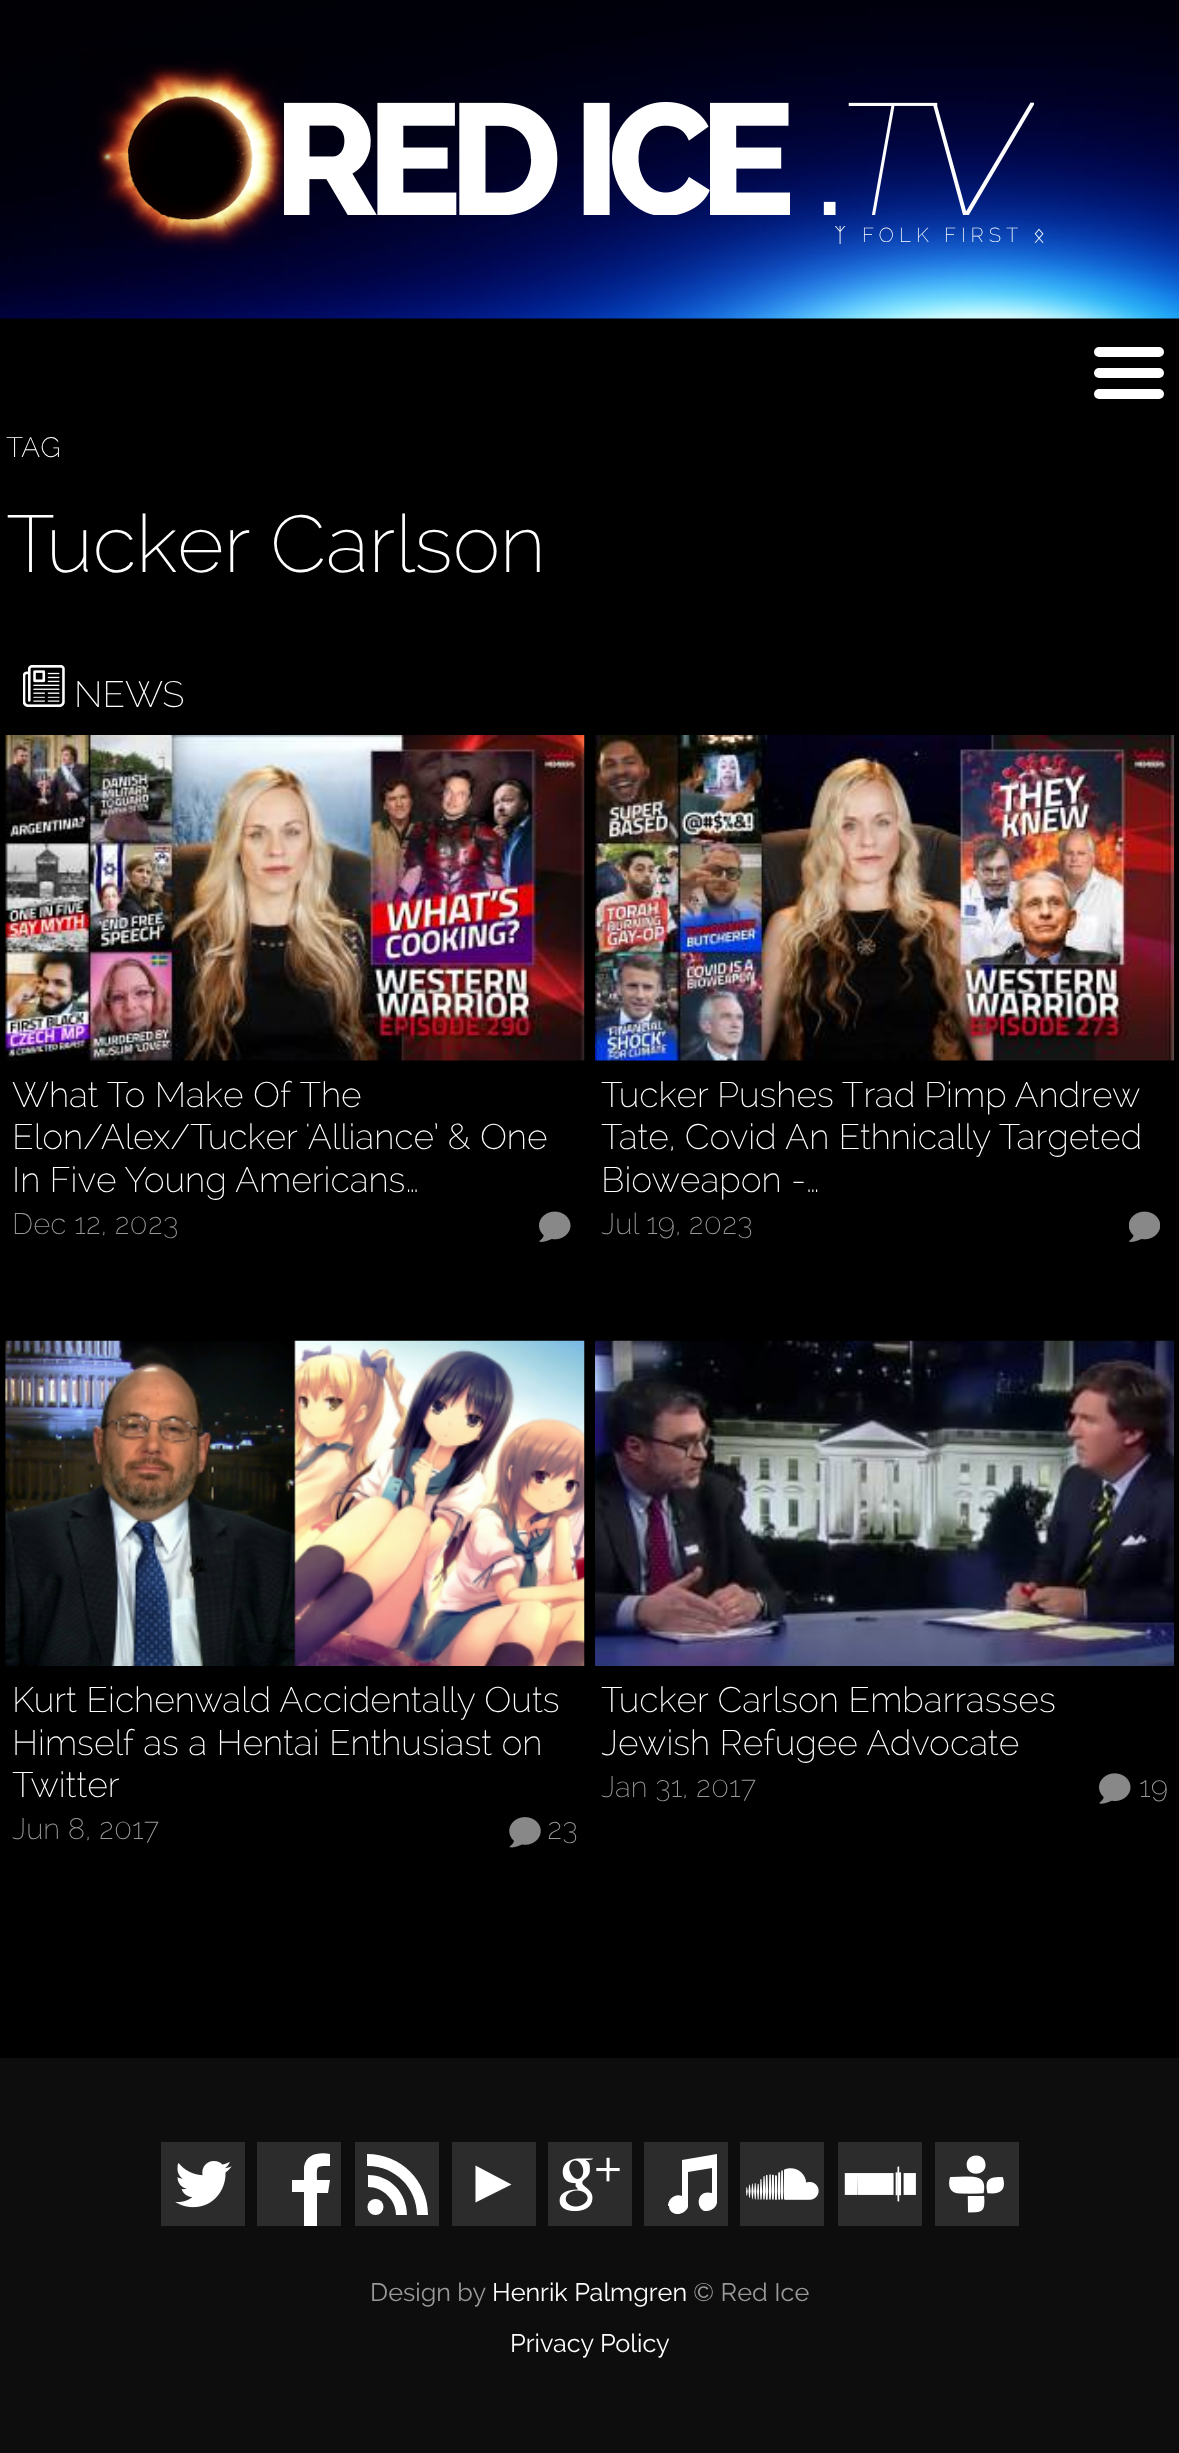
<!DOCTYPE html>
<meta charset="utf-8">
<style>body { margin: 0 } canvas { display: block }</style>
<canvas id="canvas" width="1179" height="2453"></canvas>
<script type="module">
  const canvas = document.getElementById("canvas");
  const ctx = canvas.getContext("2d");
  ctx.miterLimit = 4;
  ctx.fontKerning = "normal";
  async function loadImage(src) {
    const img = new Image();
    img.src = src;
    await img.decode();
    return img;
  }

  ctx.fillStyle = "#000000";
  ctx.fillRect(0, 0, 1179, 2453);
  ctx.drawImage(await loadImage("img1.png"), 0, 0, 1179, 319);
  ctx.drawImage(await loadImage("img3.png"), 80, 47, 221, 204);
  ctx.drawImage(await loadImage("img2.png"), 284, 102, 750, 113);
  ctx.letterSpacing = "5px";
  ctx.font = "20.25px FreeMono";
  ctx.fillStyle = "#ffffff";
  ctx.fillText("ᛉ", 834, 242);
  ctx.font = "200 20.25px Raleway";
  ctx.fillText("FOLK FIRST", 862, 242);
  ctx.font = "20.25px FreeMono";
  ctx.fillText("ᛟ", 1033, 242);
  ctx.beginPath();
  ctx.roundRect(1094, 347, 35, 10, [5, 0, 0, 5]);
  ctx.fill();
  ctx.beginPath();
  ctx.roundRect(1129, 347, 35, 10, [0, 5, 5, 0]);
  ctx.fill();
  ctx.beginPath();
  ctx.roundRect(1094, 368, 35, 10, [5, 0, 0, 5]);
  ctx.fill();
  ctx.beginPath();
  ctx.roundRect(1129, 368, 35, 10, [0, 5, 5, 0]);
  ctx.fill();
  ctx.beginPath();
  ctx.roundRect(1094, 389, 35, 10, [5, 0, 0, 5]);
  ctx.fill();
  ctx.beginPath();
  ctx.roundRect(1129, 389, 35, 10, [0, 5, 5, 0]);
  ctx.fill();
  ctx.letterSpacing = "0px";
  ctx.font = "200 28px Raleway";
  ctx.fillText("TAG", 6, 457);
  ctx.font = "200 80.25px Raleway";
  ctx.fillText("Tucker Carlson", 6, 572);
  ctx.drawImage(await loadImage("img4.png"), 23, 665, 42, 42);
  ctx.font = "200 36.5px Raleway";
  ctx.fillText("NEWS", 74, 707);
  ctx.drawImage(await loadImage("img5.png"), 5, 735, 580, 326);
  ctx.font = "200 35.4px Raleway";
  ctx.fillText("What To Make Of The", 12, 1107);
  ctx.fillText("Elon/Alex/Tucker 'Alliance’ & One", 12, 1149);
  ctx.fillText("In Five Young Americans…", 12, 1192);
  ctx.font = "200 29.5px Raleway";
  ctx.fillStyle = "#999999";
  ctx.fillText("Dec 12, 2023", 12, 1234);
  ctx.drawImage(await loadImage("img6.png"), 539, 1211, 32, 31);
  ctx.drawImage(await loadImage("img7.png"), 595, 735, 580, 326);
  ctx.wordSpacing = "-0.5px";
  ctx.font = "200 35.4px Raleway";
  ctx.fillStyle = "#ffffff";
  ctx.fillText("Tucker Pushes Trad Pimp Andrew", 601, 1107);
  ctx.wordSpacing = "0px";
  ctx.fillText("Tate, Covid An Ethnically Targeted", 601, 1149);
  ctx.fillText("Bioweapon -…", 601, 1192);
  ctx.font = "200 29.5px Raleway";
  ctx.fillStyle = "#999999";
  ctx.fillText("Jul 19, 2023", 601, 1234);
  ctx.drawImage(await loadImage("img8.png"), 1129, 1211, 31, 31);
  ctx.drawImage(await loadImage("img9.png"), 5, 1340, 580, 326);
  ctx.font = "200 35.4px Raleway";
  ctx.fillStyle = "#ffffff";
  ctx.fillText("Kurt Eichenwald Accidentally Outs", 12, 1712);
  ctx.fillText("Himself as a Hentai Enthusiast on", 12, 1755);
  ctx.fillText("Twitter", 12, 1797);
  ctx.font = "200 29.5px Raleway";
  ctx.fillStyle = "#999999";
  ctx.fillText("Jun 8, 2017", 12, 1839);
  ctx.drawImage(await loadImage("img10.png"), 509, 1817, 32, 31);
  ctx.fillText("23", 547, 1839);
  ctx.drawImage(await loadImage("img11.png"), 595, 1340, 580, 326);
  ctx.font = "200 35.4px Raleway";
  ctx.fillStyle = "#ffffff";
  ctx.fillText("Tucker Carlson Embarrasses", 601, 1712);
  ctx.fillText("Jewish Refugee Advocate", 601, 1755);
  ctx.font = "200 29.5px Raleway";
  ctx.fillStyle = "#999999";
  ctx.fillText("Jan 31, 2017", 601, 1797);
  ctx.drawImage(await loadImage("img12.png"), 1099, 1773, 32, 31);
  ctx.fillText("19", 1139, 1797);
  ctx.fillStyle = "#0d0d0d";
  ctx.fillRect(0, 2058, 1179, 395);
  ctx.fillStyle = "#2c2c2c";
  ctx.fillRect(161, 2142, 84, 84);
  ctx.drawImage(await loadImage("img13.png"), 175, 2161, 57, 47);
  ctx.fillRect(257, 2142, 84, 84);
  ctx.fillStyle = "#ffffff";
  ctx.beginPath();
  ctx.moveTo(317, 2226);
  ctx.lineTo(317, 2193);
  ctx.lineTo(328, 2193);
  ctx.lineTo(330, 2180);
  ctx.lineTo(317, 2180);
  ctx.bezierCurveTo(317, 2166, 315, 2166, 330, 2166);
  ctx.lineTo(330, 2154);
  ctx.bezierCurveTo(319, 2152, 306, 2154, 304, 2167);
  ctx.lineTo(304, 2180);
  ctx.lineTo(292, 2180);
  ctx.lineTo(292, 2192);
  ctx.lineTo(304, 2192);
  ctx.lineTo(304, 2226);
  ctx.closePath();
  ctx.fill();
  ctx.fillStyle = "#2c2c2c";
  ctx.fillRect(355, 2142, 84, 84);
  ctx.fillStyle = "#ffffff";
  ctx.beginPath();
  ctx.arc(375.5, 2207, 8, 0, Math.PI * 2);
  ctx.fill();
  ctx.beginPath();
  ctx.moveTo(368, 2187);
  ctx.bezierCurveTo(383, 2187, 396, 2200, 396, 2215);
  ctx.lineTo(407, 2215);
  ctx.bezierCurveTo(407, 2193, 390, 2175, 368, 2175);
  ctx.closePath();
  ctx.fill();
  ctx.beginPath();
  ctx.moveTo(368, 2166);
  ctx.bezierCurveTo(395, 2166, 417, 2188, 417, 2215);
  ctx.lineTo(428, 2215);
  ctx.bezierCurveTo(428, 2181, 401, 2154, 367, 2154);
  ctx.lineTo(367, 2166);
  ctx.closePath();
  ctx.fill();
  ctx.fillStyle = "#2c2c2c";
  ctx.fillRect(452, 2142, 84, 84);
  ctx.fillStyle = "#ffffff";
  ctx.beginPath();
  ctx.moveTo(475.5, 2165.5);
  ctx.lineTo(475.5, 2202.5);
  ctx.lineTo(511.5, 2184.5);
  ctx.fill();
  ctx.fillStyle = "#2c2c2c";
  ctx.fillRect(548, 2142, 84, 84);
  ctx.drawImage(await loadImage("img14.png"), 559, 2157, 61, 55);
  ctx.fillRect(644, 2142, 84, 84);
  ctx.fillStyle = "#ffffff";
  ctx.beginPath();
  ctx.moveTo(669, 2206);
  ctx.bezierCurveTo(669, 2216, 684, 2217, 688, 2207);
  ctx.lineTo(688, 2172);
  ctx.lineTo(712, 2168);
  ctx.lineTo(712, 2193);
  ctx.bezierCurveTo(693, 2188, 696, 2217, 711, 2210);
  ctx.bezierCurveTo(713, 2209, 716, 2207, 717, 2203);
  ctx.lineTo(717, 2154);
  ctx.lineTo(682, 2160);
  ctx.lineTo(682, 2196);
  ctx.bezierCurveTo(675, 2193, 668, 2199, 668, 2206);
  ctx.closePath();
  ctx.fill();
  ctx.fillStyle = "#2c2c2c";
  ctx.fillRect(740, 2142, 84, 84);
  ctx.drawImage(await loadImage("img15.png"), 746, 2168, 73, 32);
  ctx.fillRect(838, 2142, 84, 84);
  ctx.drawImage(await loadImage("img16.png"), 844, 2166, 72, 36);
  ctx.fillRect(935, 2142, 84, 84);
  ctx.drawImage(await loadImage("img17.png"), 949, 2155, 55, 58);
  ctx.font = "25.25px Raleway";
  ctx.fillStyle = "#999999";
  ctx.fillText("Design by", 370, 2301);
  ctx.fillStyle = "#ffffff";
  ctx.fillText("Henrik Palmgren", 492, 2301);
  ctx.fillStyle = "#999999";
  ctx.fillText("© Red Ice", 693, 2301);
  ctx.fillStyle = "#ffffff";
  ctx.fillText("Privacy Policy", 510, 2352);
</script>
